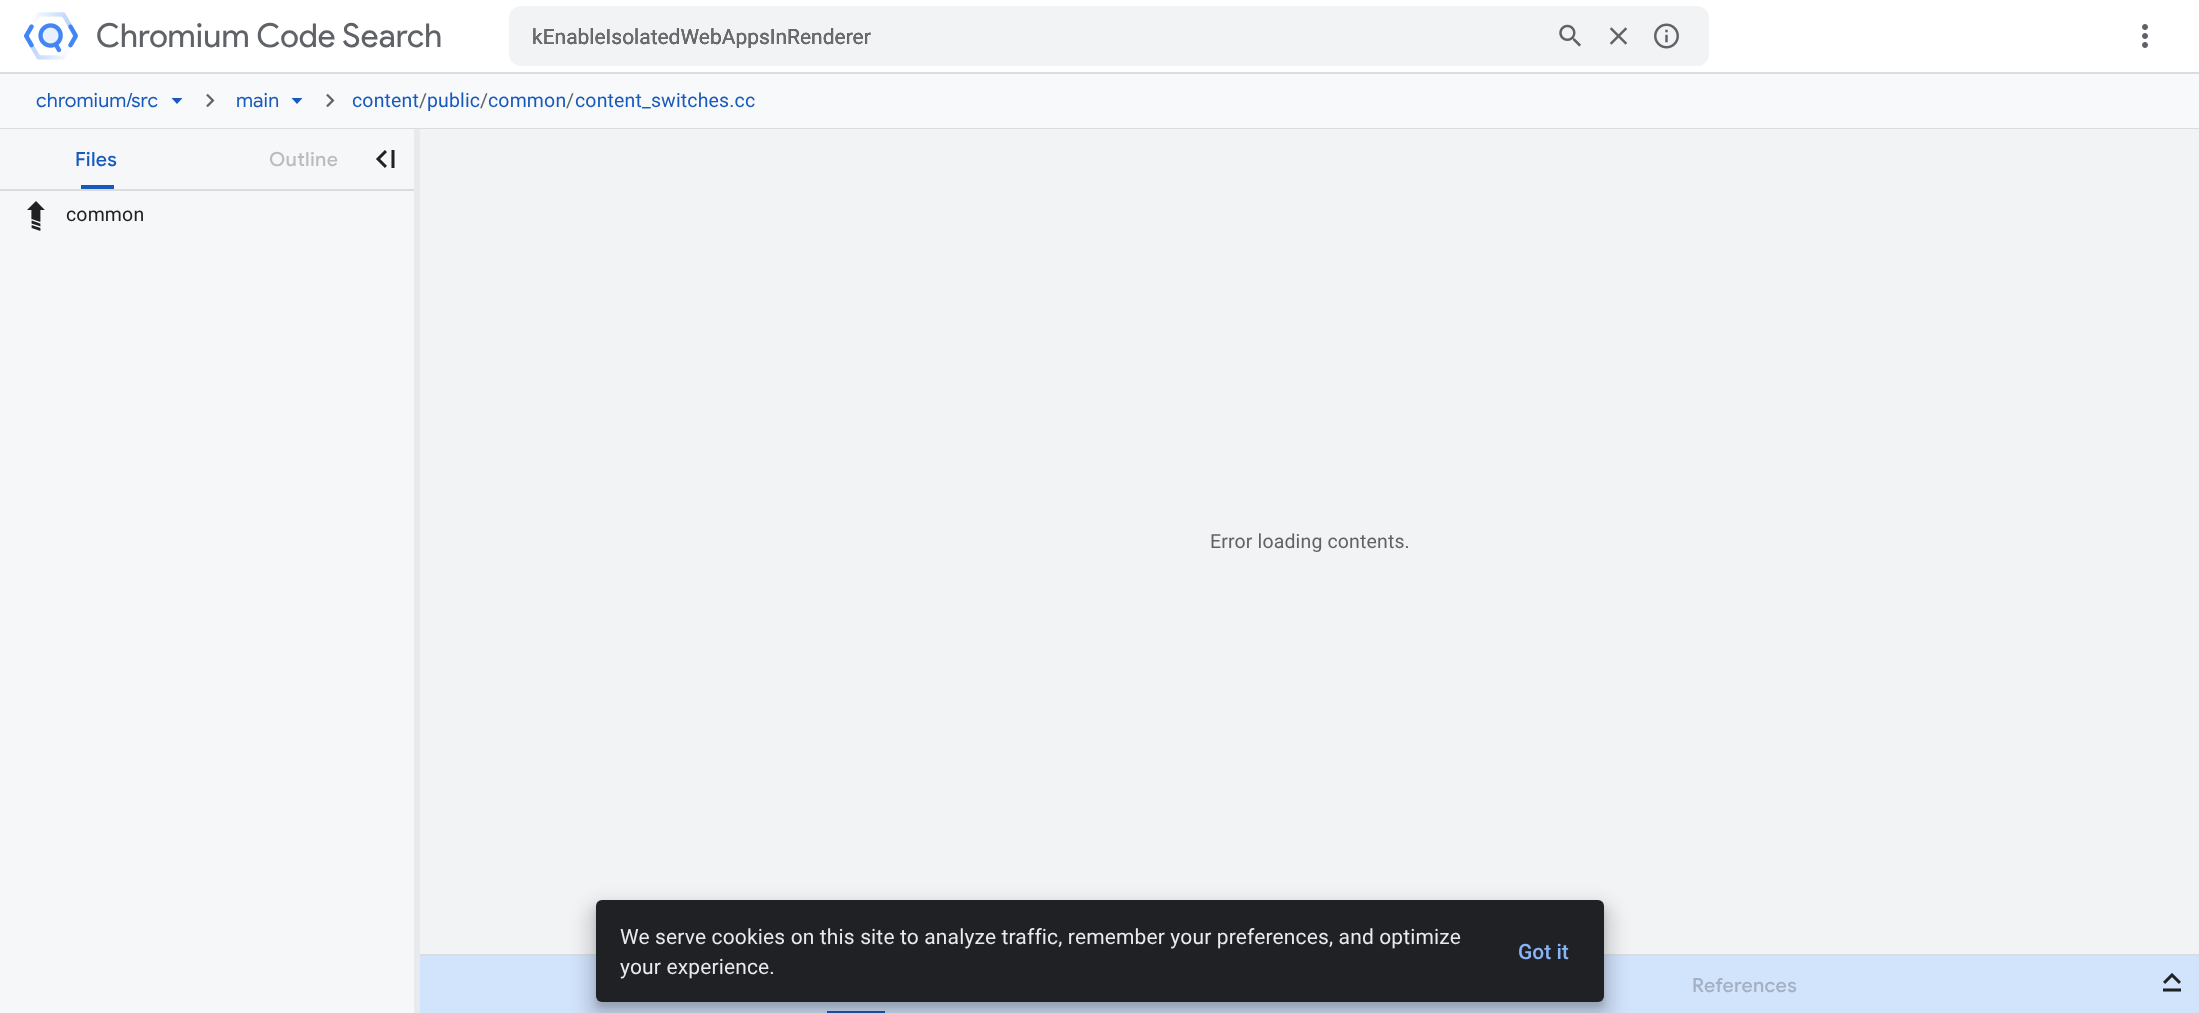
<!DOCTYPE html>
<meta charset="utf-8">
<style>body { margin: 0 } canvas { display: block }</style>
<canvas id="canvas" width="2199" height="1013"></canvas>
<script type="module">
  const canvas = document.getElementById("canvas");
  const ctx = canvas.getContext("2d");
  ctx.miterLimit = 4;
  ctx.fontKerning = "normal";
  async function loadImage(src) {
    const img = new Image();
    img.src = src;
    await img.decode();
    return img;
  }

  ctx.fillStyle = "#ffffff";
  ctx.fillRect(0, 0, 2199, 1013);
  ctx.fillStyle = "#dadce0";
  ctx.fillRect(0, 72, 2199, 2);
  ctx.drawImage(await loadImage("img1.png"), 24, 12, 54, 48);
  ctx.letterSpacing = "0.2px";
  ctx.font = "33px Product Sans";
  ctx.fillStyle = "#5f6368";
  ctx.fillText("Chromium Code Search", 96, 47);
  ctx.fillStyle = "#f1f3f4";
  ctx.beginPath();
  ctx.roundRect(509, 6, 1200, 60, 12);
  ctx.fill();
  ctx.save();
  ctx.beginPath();
  ctx.rect(533, 24, 982, 24);
  ctx.clip();
  ctx.letterSpacing = "0px";
  ctx.font = "21px Roboto";
  ctx.fillStyle = "#202124";
  ctx.fillText("kEnableIsolatedWebAppsInRenderer", 532, 44);
  ctx.fillStyle = "#6b6c6e";
  ctx.fillText("kEnableIsolatedWebAppsInRenderer", 532, 44);
  ctx.restore();
  ctx.drawImage(await loadImage("img2.png"), 1559, 24, 22, 23);
  ctx.drawImage(await loadImage("img3.png"), 1609, 27, 19, 18);
  ctx.drawImage(await loadImage("img4.png"), 1654, 23, 25, 26);
  ctx.drawImage(await loadImage("img5.png"), 2142, 24, 6, 24);
  ctx.fillStyle = "#dadce0";
  ctx.fillRect(0, 128, 2199, 1);
  ctx.fillStyle = "#f8f9fa";
  ctx.fillRect(0, 74, 2199, 54);
  ctx.letterSpacing = "0.15px";
  ctx.font = "19.5px Google Sans";
  ctx.fillStyle = "#185abc";
  ctx.fillText("chromium/src", 36, 107);
  ctx.beginPath();
  ctx.moveTo(171.5, 98);
  ctx.lineTo(177, 104);
  ctx.lineTo(182.5, 98);
  ctx.closePath();
  ctx.fill();
  ctx.drawImage(await loadImage("img6.png"), 206, 93, 9, 15);
  ctx.fillText("main", 236, 107);
  ctx.beginPath();
  ctx.moveTo(291.5, 98);
  ctx.lineTo(297, 104);
  ctx.lineTo(302.5, 98);
  ctx.closePath();
  ctx.fill();
  ctx.drawImage(await loadImage("img6.png"), 326, 93, 9, 15);
  ctx.font = "19.5px Roboto";
  ctx.fillText("content", 352, 107);
  ctx.fillStyle = "#5f6368";
  ctx.fillText("/", 419, 107);
  ctx.fillStyle = "#185abc";
  ctx.fillText("public", 427, 107);
  ctx.fillStyle = "#5f6368";
  ctx.fillText("/", 480, 107);
  ctx.fillStyle = "#185abc";
  ctx.fillText("common", 488, 107);
  ctx.fillStyle = "#5f6368";
  ctx.fillText("/", 566, 107);
  ctx.fillStyle = "#185abc";
  ctx.fillText("content_switches.cc", 575, 107);
  ctx.fillStyle = "#f6f7f9";
  ctx.fillRect(0, 129, 414, 884);
  ctx.fillStyle = "#dadce0";
  ctx.fillRect(0, 189, 414, 2);
  ctx.letterSpacing = "0.25px";
  ctx.font = "500 19.5px Google Sans";
  ctx.fillStyle = "#185abc";
  ctx.fillText("Files", 75, 166);
  ctx.fillRect(81, 185, 33, 4);
  ctx.fillStyle = "#babcbf";
  ctx.fillText("Outline", 269, 166);
  ctx.drawImage(await loadImage("img7.png"), 27, 201, 18, 30);
  ctx.letterSpacing = "0.15px";
  ctx.font = "19.5px Roboto";
  ctx.fillStyle = "#202124";
  ctx.fillText("common", 66, 221);
  ctx.drawImage(await loadImage("img8.png"), 376, 150, 19, 18);
  ctx.fillStyle = "#e8eaed";
  ctx.fillRect(414, 129, 6, 884);
  ctx.fillStyle = "#f1f3f4";
  ctx.fillRect(420, 129, 1779, 825);
  ctx.fillStyle = "#5f6368";
  ctx.fillText("Error loading contents.", 1210, 548);
  ctx.fillStyle = "#dadce0";
  ctx.fillRect(420, 954, 1779, 2);
  ctx.fillStyle = "#d2e3fc";
  ctx.fillRect(420, 956, 1779, 57);
  ctx.letterSpacing = "0.25px";
  ctx.font = "500 19.5px Google Sans";
  ctx.fillStyle = "#a4b0c1";
  ctx.fillText("References", 1692, 992);
  ctx.fillStyle = "#185abc";
  ctx.fillRect(827, 1011, 58, 2);
  ctx.drawImage(await loadImage("img9.png"), 2163, 973, 18, 19);
  ctx.fillStyle = "rgba(0, 0, 0, 0.15)";
  ctx.filter = "blur(9px)";
  ctx.beginPath();
  ctx.roundRect(587, 903, 1026, 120, 15);
  ctx.fill();
  ctx.filter = "none";
  ctx.filter = "blur(3px)";
  ctx.beginPath();
  ctx.roundRect(596, 906, 1008, 102, 6);
  ctx.fill();
  ctx.filter = "none";
  ctx.fillStyle = "#202124";
  ctx.beginPath();
  ctx.roundRect(596, 900, 1008, 102, 6);
  ctx.fill();
  ctx.letterSpacing = "0.15px";
  ctx.font = "21px Roboto";
  ctx.fillStyle = "#e8eaed";
  ctx.fillText("We serve cookies on this site to analyze traffic, remember your preferences, and optimize", 620, 944);
  ctx.fillText("your experience.", 620, 974);
  ctx.letterSpacing = "0px";
  ctx.font = "500 21px Roboto";
  ctx.fillStyle = "#8ab4f8";
  ctx.fillText("Got it", 1518, 959);
</script>
